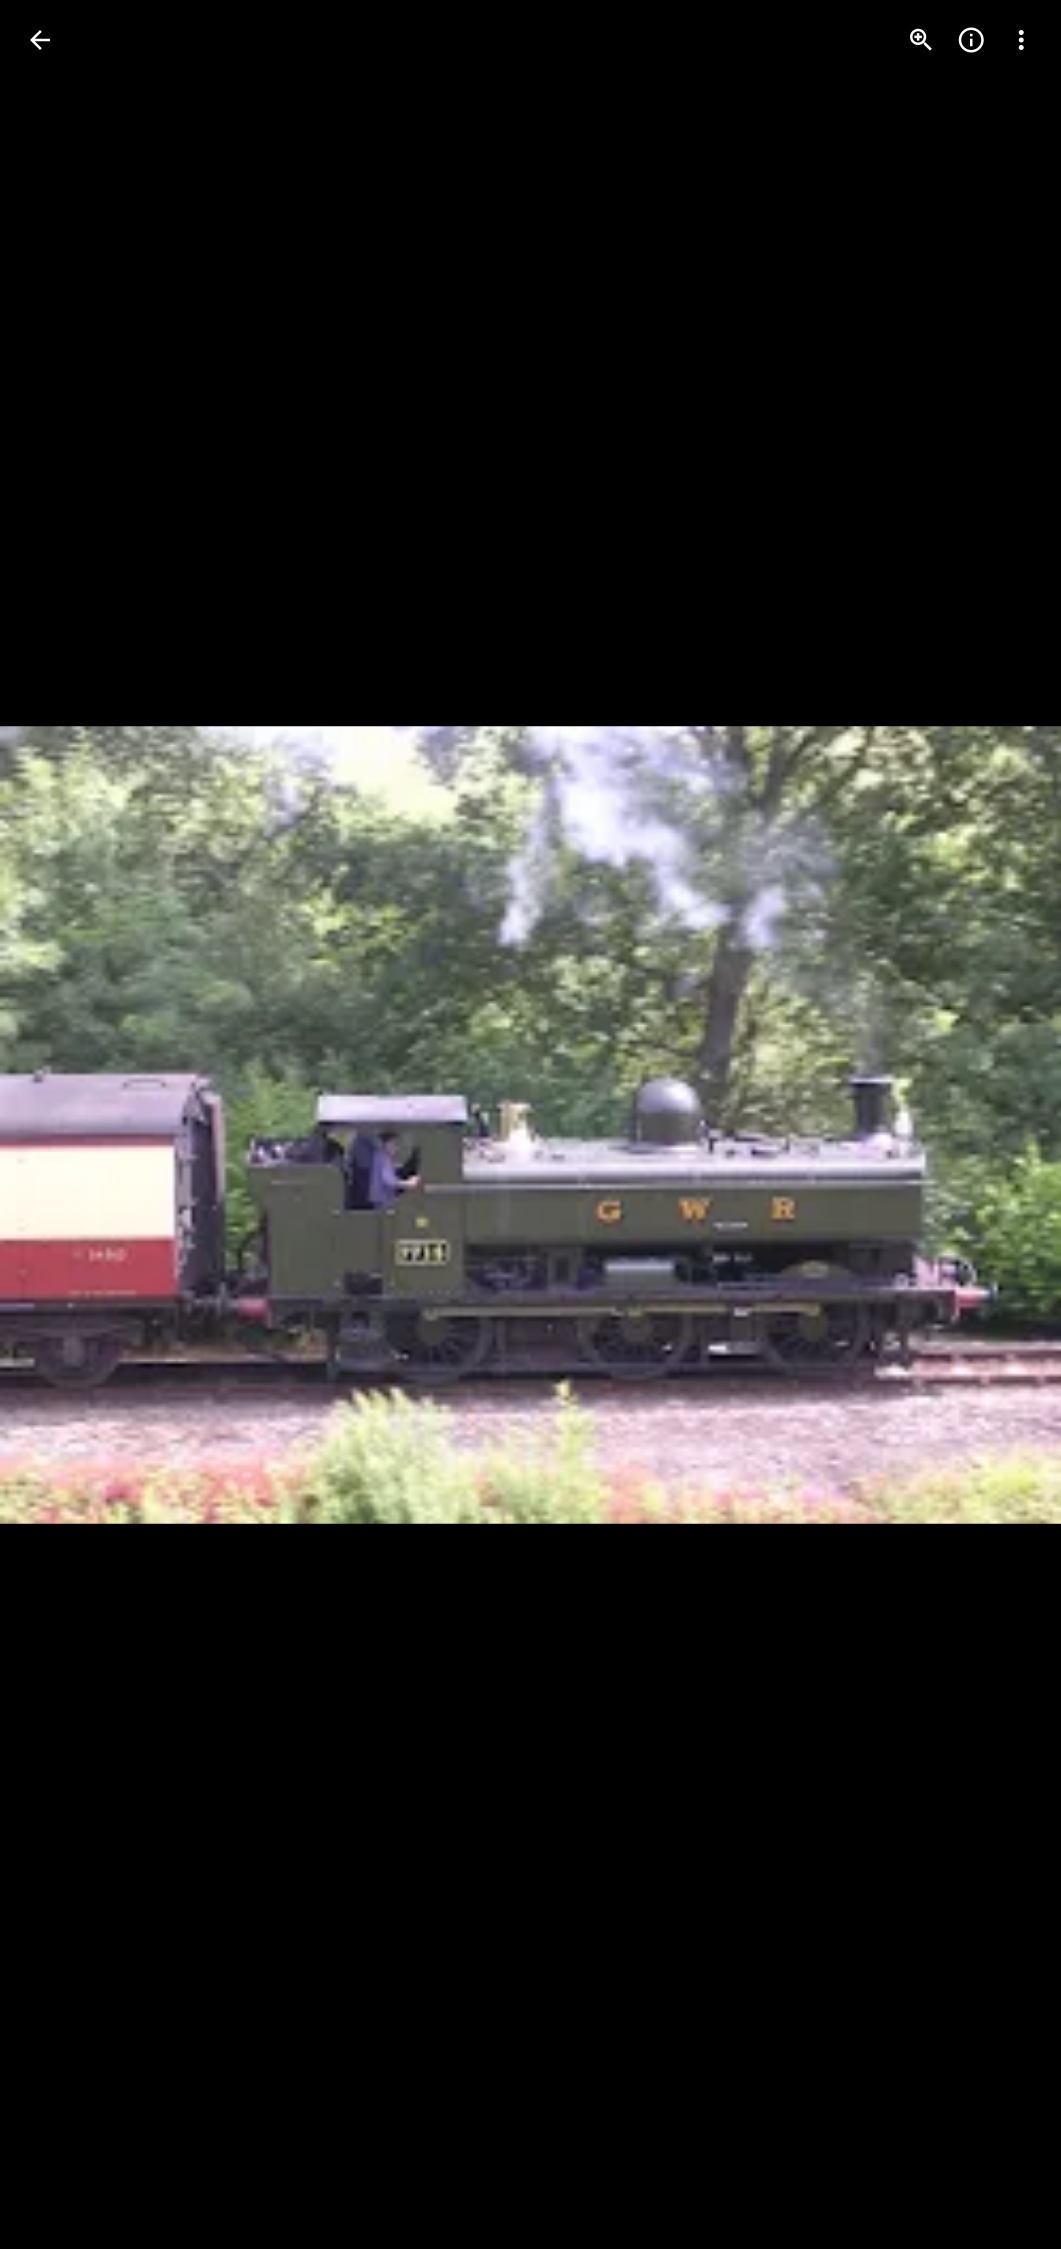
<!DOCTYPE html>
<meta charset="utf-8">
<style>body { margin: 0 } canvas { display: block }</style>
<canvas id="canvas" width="1061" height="2249"></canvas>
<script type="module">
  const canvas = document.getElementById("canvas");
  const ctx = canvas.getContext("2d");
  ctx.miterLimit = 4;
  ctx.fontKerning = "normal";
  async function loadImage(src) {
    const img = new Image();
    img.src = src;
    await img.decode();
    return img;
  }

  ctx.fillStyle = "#000000";
  ctx.fillRect(0, 0, 1061, 2249);
  ctx.drawImage(await loadImage("img1.png"), 30, 30, 20, 20);
  ctx.drawImage(await loadImage("img2.png"), 910, 28, 22, 23);
  ctx.drawImage(await loadImage("img3.png"), 958, 27, 26, 26);
  ctx.drawImage(await loadImage("img4.png"), 1018, 30, 6, 20);
  ctx.drawImage(await loadImage("img5.png"), 0, 726, 1061, 798);
</script>
